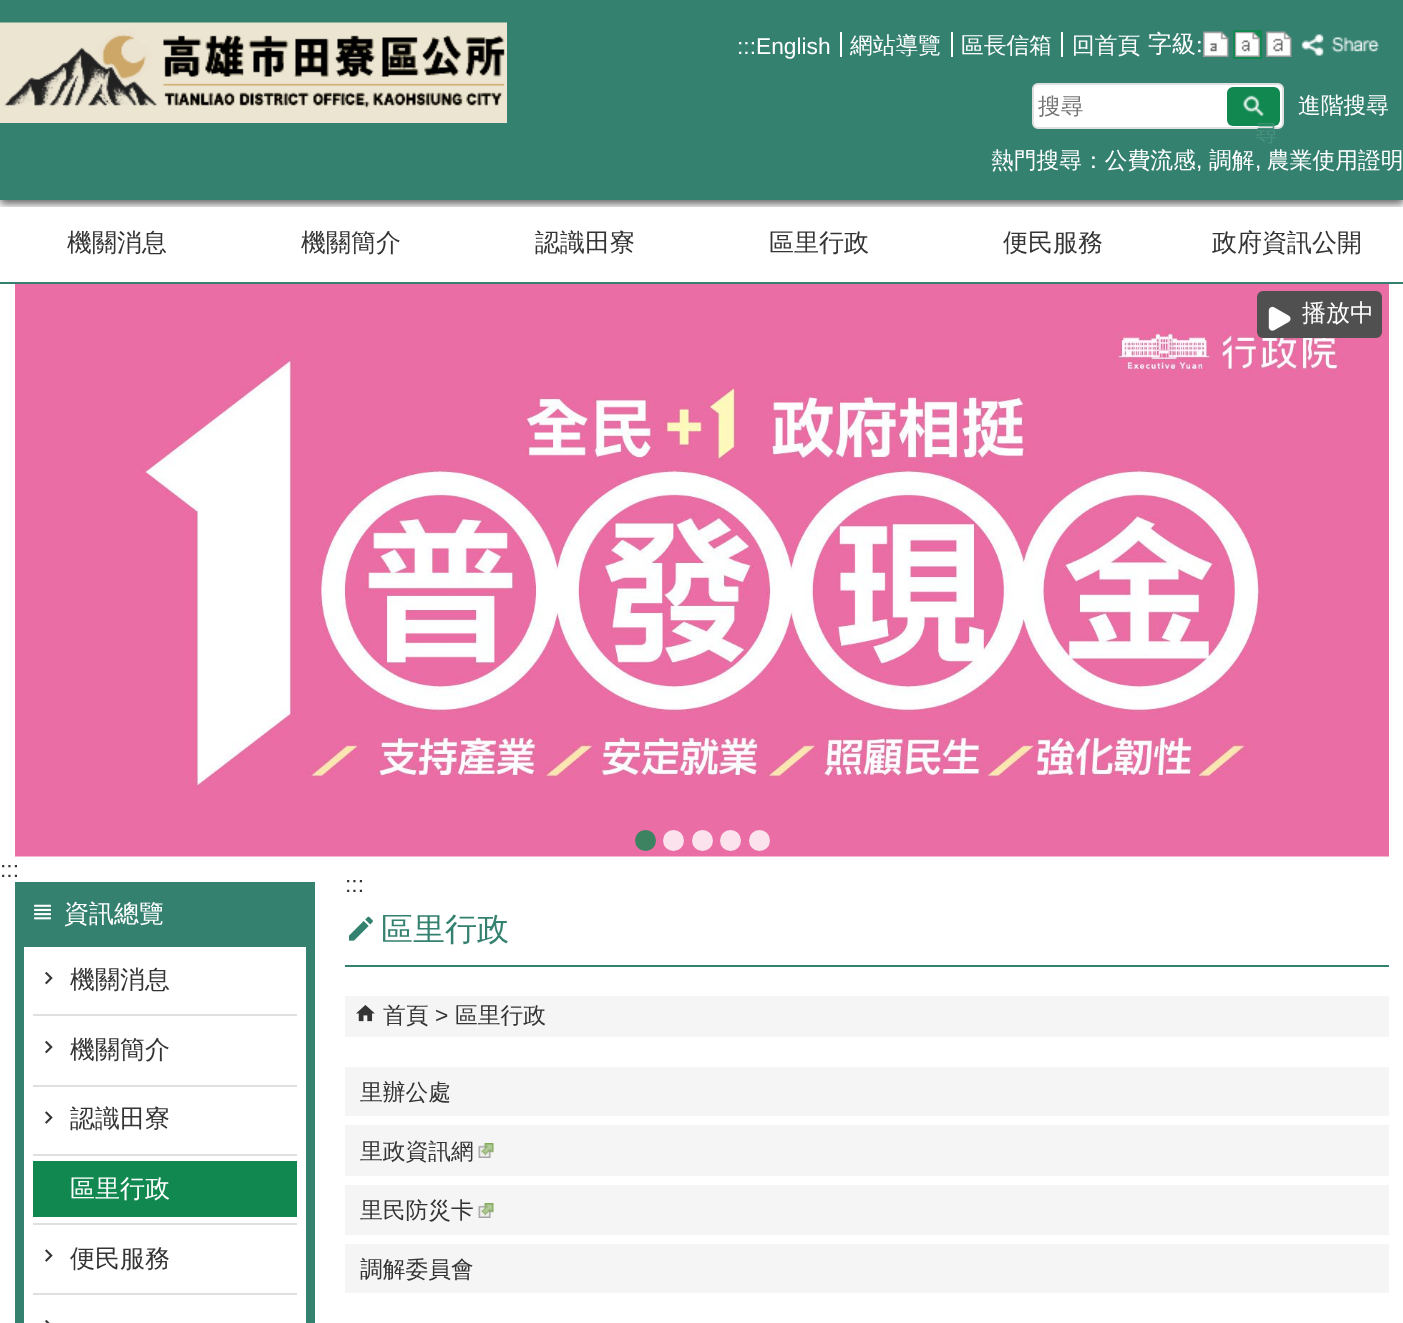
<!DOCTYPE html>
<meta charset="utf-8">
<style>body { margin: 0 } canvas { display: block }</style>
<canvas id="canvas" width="1403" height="1323"></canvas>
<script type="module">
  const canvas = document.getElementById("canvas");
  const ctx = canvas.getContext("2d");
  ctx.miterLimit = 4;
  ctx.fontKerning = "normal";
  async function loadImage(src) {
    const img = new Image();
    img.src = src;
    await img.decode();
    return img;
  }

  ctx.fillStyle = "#ffffff";
  ctx.fillRect(0, 0, 1403, 1323);
  ctx.fillStyle = "#646464";
  ctx.filter = "blur(4.5px)";
  ctx.beginPath();
  ctx.rect(0, 5, 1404, 199);
  ctx.fill();
  ctx.filter = "none";
  ctx.fillStyle = "#348170";
  ctx.fillRect(0, 0, 1403, 200);
  ctx.drawImage(await loadImage("img1.png"), 0, 22, 507, 101);
  ctx.font = "22.75px Liberation Sans";
  ctx.fillStyle = "#ffffff";
  ctx.fillText(":::English", 737, 54);
  ctx.font = "500 22.75px WenQuanYi Zen Hei";
  ctx.fillText("網站導覽", 850, 53);
  ctx.fillRect(840, 32, 2, 25);
  ctx.fillText("區長信箱", 961, 53);
  ctx.fillRect(951, 32, 2, 25);
  ctx.fillText("回首頁", 1072, 53);
  ctx.fillRect(1061, 32, 2, 25);
  ctx.font = "500 24px WenQuanYi Zen Hei";
  ctx.fillText("字級", 1148, 52);
  ctx.font = "24px Liberation Serif";
  ctx.fillText(":", 1196, 52);
  ctx.drawImage(await loadImage("img2.png"), 1203, 31, 26, 26);
  ctx.fillStyle = "#128851";
  ctx.fillRect(1253, 32, 7, 6);
  ctx.drawImage(await loadImage("img3.png"), 1235, 32, 25, 25);
  ctx.strokeStyle = "#128851";
  ctx.lineWidth = 2;
  ctx.strokeRect(1234, 31, 27, 27);
  ctx.drawImage(await loadImage("img4.png"), 1266, 31, 26, 26);
  ctx.drawImage(await loadImage("img5.png"), 1301, 34, 78, 22);
  ctx.fillStyle = "#ffffff";
  ctx.beginPath();
  ctx.roundRect(1033, 84, 250, 44, 5);
  ctx.fill();
  ctx.strokeStyle = "#e0e0e0";
  ctx.stroke();
  ctx.font = "500 22.75px WenQuanYi Zen Hei";
  ctx.fillStyle = "#757575";
  ctx.fillText("搜尋", 1038, 114);
  ctx.fillStyle = "#128851";
  ctx.beginPath();
  ctx.roundRect(1227, 87, 53, 39, 6);
  ctx.fill();
  ctx.drawImage(await loadImage("img6.png"), 1243, 95, 21, 21);
  ctx.fillStyle = "#48927c";
  ctx.fillText("尋", 1255, 141);
  ctx.fillStyle = "#ffffff";
  ctx.fillText("進階搜尋", 1298, 113);
  ctx.fillText("熱門搜尋：公費流感", 991, 168);
  ctx.font = "22.75px Liberation Sans";
  ctx.fillText(",", 1196, 168);
  ctx.font = "500 22.75px WenQuanYi Zen Hei";
  ctx.fillText("調解", 1209, 168);
  ctx.font = "22.75px Liberation Sans";
  ctx.fillText(",", 1255, 168);
  ctx.font = "500 22.75px WenQuanYi Zen Hei";
  ctx.fillText("農業使用證明", 1267, 168);
  ctx.fillStyle = "#348170";
  ctx.fillRect(0, 282, 1403, 2);
  ctx.fillStyle = "#ffffff";
  ctx.fillRect(0, 207, 1403, 7);
  ctx.font = "500 25px WenQuanYi Zen Hei";
  ctx.fillStyle = "#343434";
  ctx.fillText("機關消息", 67, 251);
  ctx.fillText("機關簡介", 301, 251);
  ctx.fillText("認識田寮", 535, 251);
  ctx.fillText("區里行政", 769, 251);
  ctx.fillText("便民服務", 1003, 251);
  ctx.fillText("政府資訊公開", 1212, 251);
  ctx.drawImage(await loadImage("img7.png"), 15, 284, 1374, 573);
  ctx.fillStyle = "#505050";
  ctx.beginPath();
  ctx.roundRect(1257, 291, 125, 47, 6);
  ctx.fill();
  ctx.drawImage(await loadImage("img8.png"), 1268, 306, 23, 25);
  ctx.font = "500 24px WenQuanYi Zen Hei";
  ctx.fillStyle = "#ffffff";
  ctx.fillText("播放中", 1302, 321);
  ctx.fillStyle = "#3d8362";
  ctx.beginPath();
  ctx.arc(645.5, 840.5, 10.5, 0, Math.PI * 2);
  ctx.fill();
  ctx.fillStyle = "#fbe2ed";
  ctx.beginPath();
  ctx.arc(673.5, 840.5, 10.5, 0, Math.PI * 2);
  ctx.fill();
  ctx.beginPath();
  ctx.arc(702.5, 840.5, 10.5, 0, Math.PI * 2);
  ctx.fill();
  ctx.beginPath();
  ctx.arc(730.5, 840.5, 10.5, 0, Math.PI * 2);
  ctx.fill();
  ctx.beginPath();
  ctx.arc(759.5, 840.5, 10.5, 0, Math.PI * 2);
  ctx.fill();
  ctx.font = "22.75px Liberation Sans";
  ctx.fillStyle = "#343434";
  ctx.fillText(":::", 0, 877);
  ctx.fillStyle = "#348170";
  ctx.fillRect(15, 882, 300, 441);
  ctx.drawImage(await loadImage("img9.png"), 34, 904, 17, 16);
  ctx.font = "500 25px WenQuanYi Zen Hei";
  ctx.fillStyle = "#ffffff";
  ctx.fillText("資訊總覽", 64, 922);
  ctx.fillRect(24, 947, 282, 376);
  ctx.drawImage(await loadImage("img10.png"), 45, 971, 8, 14);
  ctx.fillStyle = "#343434";
  ctx.fillText("機關消息", 70, 988);
  ctx.fillStyle = "#e0e0e0";
  ctx.fillRect(33, 1014, 264, 2);
  ctx.drawImage(await loadImage("img10.png"), 45, 1040, 8, 14);
  ctx.fillStyle = "#343434";
  ctx.fillText("機關簡介", 70, 1058);
  ctx.fillStyle = "#e0e0e0";
  ctx.fillRect(33, 1085, 264, 2);
  ctx.drawImage(await loadImage("img11.png"), 45, 1111, 8, 13);
  ctx.fillStyle = "#343434";
  ctx.fillText("認識田寮", 70, 1127);
  ctx.fillStyle = "#e0e0e0";
  ctx.fillRect(33, 1154, 264, 2);
  ctx.fillStyle = "#128851";
  ctx.fillRect(33, 1161, 264, 56);
  ctx.fillStyle = "#ffffff";
  ctx.fillText("區里行政", 70, 1197);
  ctx.fillStyle = "#e0e0e0";
  ctx.fillRect(33, 1223, 264, 2);
  ctx.drawImage(await loadImage("img11.png"), 45, 1249, 8, 13);
  ctx.fillStyle = "#343434";
  ctx.fillText("便民服務", 70, 1267);
  ctx.fillStyle = "#e0e0e0";
  ctx.fillRect(33, 1293, 264, 2);
  ctx.drawImage(await loadImage("img12.png"), 45, 1319, 5, 4);
  ctx.font = "22.75px Liberation Sans";
  ctx.fillStyle = "#343434";
  ctx.fillText(":::", 345, 892);
  ctx.fillStyle = "#348170";
  ctx.fillRect(345, 965, 1044, 2);
  ctx.drawImage(await loadImage("img13.png"), 349, 916, 24, 25);
  ctx.font = "500 32px WenQuanYi Zen Hei";
  ctx.fillText("區里行政", 381, 940);
  ctx.fillStyle = "#f5f5f5";
  ctx.fillRect(345, 996, 1044, 41);
  ctx.drawImage(await loadImage("img14.png"), 356, 1005, 19, 17);
  ctx.font = "500 22.75px WenQuanYi Zen Hei";
  ctx.fillStyle = "#343434";
  ctx.fillText("首頁", 383, 1023);
  ctx.font = "22.75px Liberation Sans";
  ctx.fillText(">", 435, 1023);
  ctx.font = "500 22.75px WenQuanYi Zen Hei";
  ctx.fillText("區里行政", 455, 1023);
  ctx.fillStyle = "#f5f5f5";
  ctx.fillRect(345, 1067, 1044, 49);
  ctx.fillStyle = "#343434";
  ctx.fillText("里辦公處", 360, 1100);
  ctx.fillStyle = "#f5f5f5";
  ctx.fillRect(345, 1125, 1044, 51);
  ctx.fillStyle = "#343434";
  ctx.fillText("里政資訊網", 360, 1159);
  ctx.drawImage(await loadImage("img15.png"), 478, 1143, 16, 15);
  ctx.fillStyle = "#f5f5f5";
  ctx.fillRect(345, 1185, 1044, 50);
  ctx.fillStyle = "#343434";
  ctx.fillText("里民防災卡", 360, 1218);
  ctx.drawImage(await loadImage("img15.png"), 478, 1203, 16, 15);
  ctx.fillStyle = "#f5f5f5";
  ctx.fillRect(345, 1244, 1044, 49);
  ctx.fillStyle = "#343434";
  ctx.fillText("調解委員會", 360, 1277);
</script>
